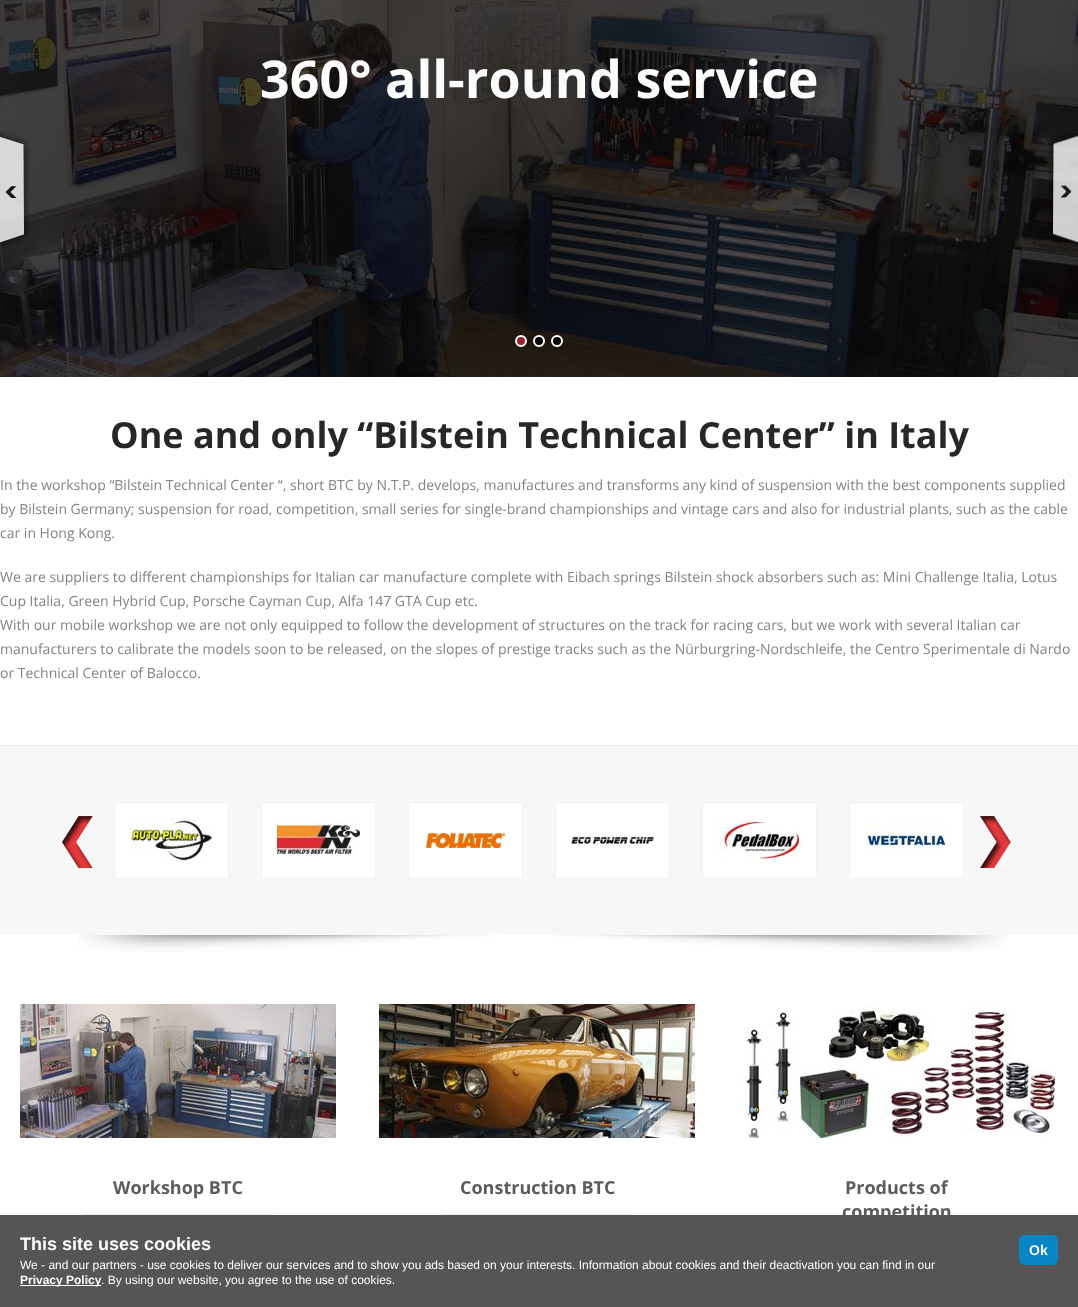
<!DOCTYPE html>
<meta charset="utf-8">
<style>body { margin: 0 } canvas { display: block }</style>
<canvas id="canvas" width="1078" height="1307"></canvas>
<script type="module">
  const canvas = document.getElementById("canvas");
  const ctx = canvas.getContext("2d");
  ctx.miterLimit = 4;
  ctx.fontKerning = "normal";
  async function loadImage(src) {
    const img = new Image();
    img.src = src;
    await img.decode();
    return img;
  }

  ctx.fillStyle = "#ffffff";
  ctx.fillRect(0, 0, 1078, 1307);
  ctx.drawImage(await loadImage("img1.png"), 0, 0, 1078, 377);
  ctx.font = "bold 52px Open Sans";
  ctx.fillStyle = "#fcfcfc";
  ctx.fillText("360° all-round service", 260, 98);
  ctx.drawImage(await loadImage("img2.png"), 0, 131, 30, 116);
  ctx.drawImage(await loadImage("img3.png"), 1048, 133, 30, 114);
  ctx.fillStyle = "#982528";
  ctx.beginPath();
  ctx.arc(521, 341, 5, 0, Math.PI * 2);
  ctx.fill();
  ctx.strokeStyle = "#ffffff";
  ctx.lineWidth = 2;
  ctx.stroke();
  ctx.fillStyle = "#000000";
  ctx.beginPath();
  ctx.arc(539, 341, 5, 0, Math.PI * 2);
  ctx.fill();
  ctx.stroke();
  ctx.beginPath();
  ctx.arc(557, 341, 5, 0, Math.PI * 2);
  ctx.fill();
  ctx.stroke();
  ctx.font = "bold 36px Open Sans";
  ctx.fillStyle = "#272727";
  ctx.fillText("One and only “Bilstein Technical Center” in Italy", 110, 448);
  ctx.font = "14px Open Sans";
  ctx.fillStyle = "#838383";
  ctx.fillText("In the workshop “Bilstein Technical Center “, short BTC by N.T.P. develops, manufactures and transforms any kind of suspension with the best components supplied", 0, 490);
  ctx.fillText("by Bilstein Germany; suspension for road, competition, small series for single-brand championships and vintage cars and also for industrial plants, such as the cable", 0, 514);
  ctx.fillText("car in Hong Kong.", 0, 538);
  ctx.fillText("We are suppliers to different championships for Italian car manufacture complete with Eibach springs Bilstein shock absorbers such as: Mini Challenge Italia, Lotus", 0, 582);
  ctx.fillText("Cup Italia, Green Hybrid Cup, Porsche Cayman Cup, Alfa 147 GTA Cup etc.", 0, 606);
  ctx.fillText("With our mobile workshop we are not only equipped to follow the development of structures on the track for racing cars, but we work with several Italian car", 0, 630);
  ctx.fillText("manufacturers to calibrate the models soon to be released, on the slopes of prestige tracks such as the Nürburgring-Nordschleife, the Centro Sperimentale di Nardo", 0, 654);
  ctx.fillText("or Technical Center of Balocco.", 0, 678);
  ctx.fillStyle = "#f7f7f7";
  ctx.fillRect(0, 746, 1078, 189);
  ctx.fillStyle = "#efefef";
  ctx.fillRect(0, 745, 1078, 1);
  ctx.drawImage(await loadImage("img4.png"), 62, 816, 31, 52);
  ctx.fillStyle = "#ffffff";
  ctx.beginPath();
  ctx.rect(114.5, 802.5, 114, 76);
  ctx.fill();
  ctx.strokeStyle = "#f2f2f2";
  ctx.lineWidth = 1;
  ctx.stroke();
  ctx.drawImage(await loadImage("img5.png"), 130, 818, 83, 45);
  ctx.beginPath();
  ctx.rect(261.5, 802.5, 114, 76);
  ctx.fill();
  ctx.stroke();
  ctx.drawImage(await loadImage("img6.png"), 277, 822, 83, 33);
  ctx.beginPath();
  ctx.rect(408.5, 802.5, 114, 76);
  ctx.fill();
  ctx.stroke();
  ctx.drawImage(await loadImage("img7.png"), 424, 833, 83, 15);
  ctx.beginPath();
  ctx.rect(555.5, 802.5, 114, 76);
  ctx.fill();
  ctx.stroke();
  ctx.drawImage(await loadImage("img8.png"), 571, 833, 83, 15);
  ctx.beginPath();
  ctx.rect(702.5, 802.5, 114, 76);
  ctx.fill();
  ctx.stroke();
  ctx.drawImage(await loadImage("img9.png"), 718, 818, 83, 44);
  ctx.beginPath();
  ctx.rect(849.5, 802.5, 114, 76);
  ctx.fill();
  ctx.stroke();
  ctx.drawImage(await loadImage("img10.png"), 865, 822, 82, 33);
  ctx.drawImage(await loadImage("img11.png"), 980, 816, 31, 52);
  ctx.drawImage(await loadImage("img12.png"), 78, 935, 929, 17);
  ctx.drawImage(await loadImage("img13.png"), 20, 1004, 316, 134);
  ctx.fillStyle = "#ebebeb";
  ctx.fillRect(83, 1214, 190, 1);
  ctx.font = "bold 18px Open Sans";
  ctx.fillStyle = "#5c5c5c";
  ctx.fillText("Workshop BTC", 113, 1194);
  ctx.drawImage(await loadImage("img14.png"), 379, 1004, 316, 134);
  ctx.fillStyle = "#ebebeb";
  ctx.fillRect(442, 1214, 190, 1);
  ctx.fillStyle = "#5c5c5c";
  ctx.fillText("Construction BTC", 460, 1194);
  ctx.drawImage(await loadImage("img15.png"), 739, 1004, 316, 134);
  ctx.fillText("Products of", 845, 1194);
  ctx.fillText("competition", 842, 1218);
  ctx.fillStyle = "#555555";
  ctx.fillRect(0, 1215, 1078, 92);
  ctx.font = "bold 18px Liberation Sans";
  ctx.fillStyle = "#fcfcfc";
  ctx.fillText("This site uses cookies", 20, 1250);
  ctx.fillStyle = "#0885c4";
  ctx.beginPath();
  ctx.roundRect(1019, 1235, 39, 30, 5);
  ctx.fill();
  ctx.font = "bold 14px Liberation Sans";
  ctx.fillStyle = "#fcfcfc";
  ctx.fillText("Ok", 1029, 1255);
  ctx.font = "12px Liberation Sans";
  ctx.fillText("We - and our partners - use cookies to deliver our services and to show you ads based on your interests. Information about cookies and their deactivation you can find in our", 20, 1269);
  ctx.fillStyle = "#ffffff";
  ctx.fillRect(20, 1285, 81, 1);
  ctx.font = "bold 12px Liberation Sans";
  ctx.fillStyle = "#fcfcfc";
  ctx.fillText("Privacy Policy", 20, 1284);
  ctx.font = "12px Liberation Sans";
  ctx.fillText(". By using our website, you agree to the use of cookies.", 101, 1284);
</script>
